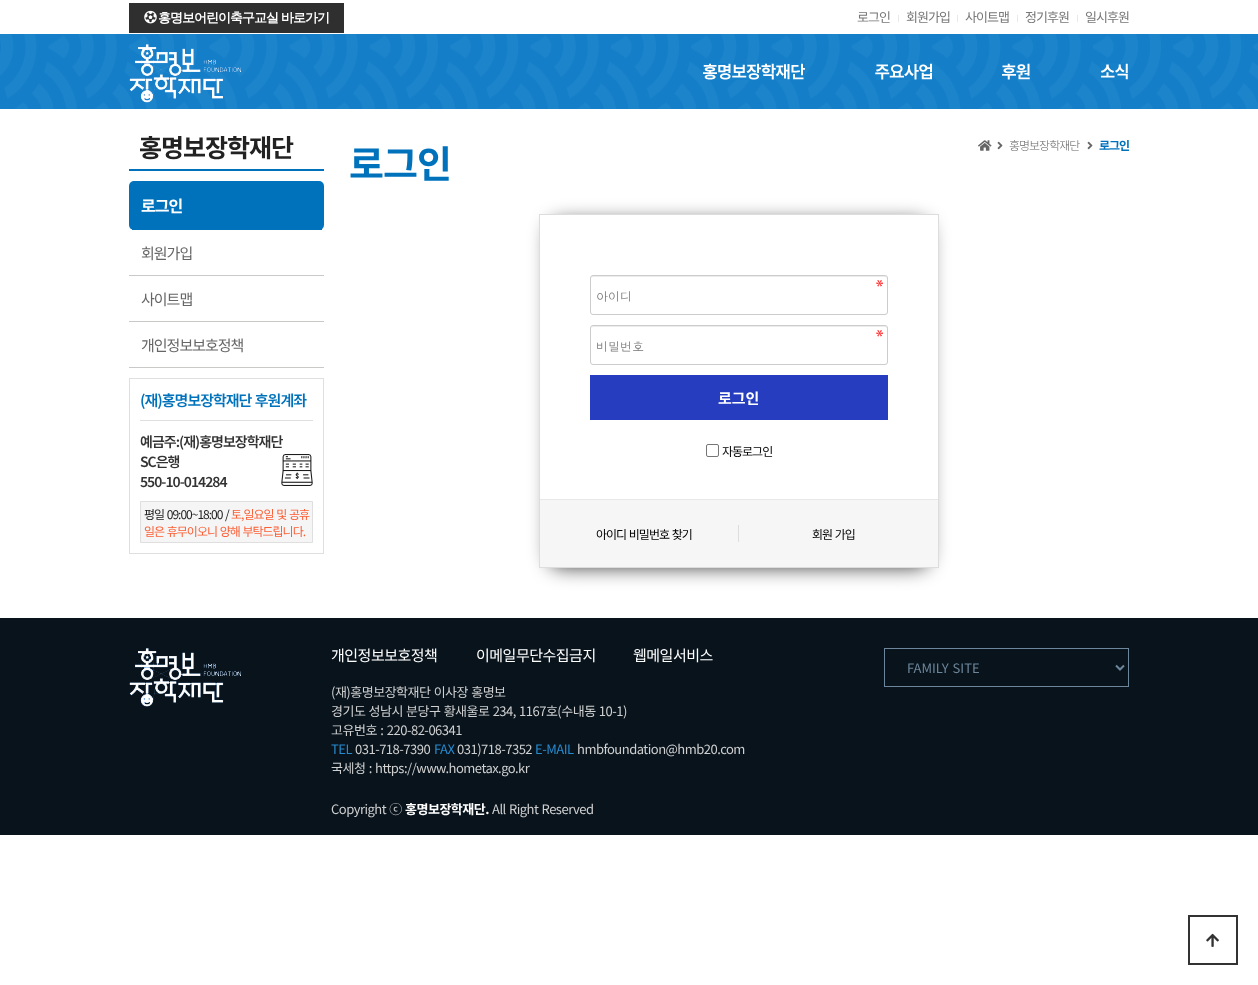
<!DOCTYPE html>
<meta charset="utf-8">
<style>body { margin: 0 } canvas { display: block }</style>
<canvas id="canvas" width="1258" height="985"></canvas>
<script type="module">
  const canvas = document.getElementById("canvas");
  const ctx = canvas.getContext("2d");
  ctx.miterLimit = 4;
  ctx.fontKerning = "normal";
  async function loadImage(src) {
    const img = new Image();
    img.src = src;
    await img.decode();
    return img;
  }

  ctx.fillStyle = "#ffffff";
  ctx.fillRect(0, 0, 1258, 985);
  ctx.fillStyle = "#2f2f2f";
  ctx.fillRect(129, 3, 215, 30);
  ctx.drawImage(await loadImage("img1.png"), 144, 10, 13, 14);
  ctx.letterSpacing = "-1px";
  ctx.font = "bold 13px WenQuanYi Zen Hei";
  ctx.fillStyle = "#ffffff";
  ctx.fillText("홍명보어린이축구교실 바로가기", 158, 22);
  ctx.font = "13px Noto Sans KR";
  ctx.fillStyle = "#777777";
  ctx.fillText("로그인", 857, 22);
  ctx.fillStyle = "#e9e9e9";
  ctx.fillRect(898, 15, 1, 7);
  ctx.fillStyle = "#777777";
  ctx.fillText("회원가입", 906, 22);
  ctx.fillStyle = "#e9e9e9";
  ctx.fillRect(957, 15, 1, 7);
  ctx.fillStyle = "#777777";
  ctx.fillText("사이트맵", 965, 22);
  ctx.fillStyle = "#e9e9e9";
  ctx.fillRect(1017, 15, 1, 7);
  ctx.fillStyle = "#777777";
  ctx.fillText("정기후원", 1025, 22);
  ctx.fillStyle = "#e9e9e9";
  ctx.fillRect(1077, 15, 1, 7);
  ctx.fillStyle = "#777777";
  ctx.fillText("일시후원", 1085, 22);
  ctx.fillStyle = "#1581ca";
  ctx.fillRect(0, 34, 1258, 75);
  ctx.drawImage(await loadImage("img2.png"), 0, 34, 1258, 75);
  ctx.drawImage(await loadImage("img3.png"), 129, 44, 112, 59);
  ctx.fillRect(703, 63, 102, 17);
  ctx.drawImage(await loadImage("img4.png"), 703, 63, 102, 17);
  ctx.fillRect(876, 63, 56, 17);
  ctx.drawImage(await loadImage("img5.png"), 875, 63, 57, 17);
  ctx.fillRect(1008, 63, 23, 17);
  ctx.drawImage(await loadImage("img6.png"), 1002, 63, 28, 17);
  ctx.fillRect(1101, 63, 28, 17);
  ctx.drawImage(await loadImage("img7.png"), 1101, 63, 27, 17);
  ctx.fillStyle = "#0072bc";
  ctx.fillRect(129, 169, 195, 2);
  ctx.font = "bold 25px Noto Sans KR";
  ctx.fillStyle = "#222222";
  ctx.fillText("홍명보장학재단", 139, 157);
  ctx.fillStyle = "#0072bc";
  ctx.beginPath();
  ctx.roundRect(129, 181, 195, 49, 5);
  ctx.fill();
  ctx.fillRect(132, 229, 190, 1);
  ctx.font = "bold 16px Noto Sans KR";
  ctx.fillStyle = "#ffffff";
  ctx.fillText("로그인", 141, 212);
  ctx.fillStyle = "#c9c9c8";
  ctx.fillRect(129, 275, 195, 1);
  ctx.font = "15px Noto Sans KR";
  ctx.fillStyle = "#666666";
  ctx.fillText("회원가입", 141, 259);
  ctx.fillStyle = "#c9c9c8";
  ctx.fillRect(129, 321, 195, 1);
  ctx.fillStyle = "#666666";
  ctx.fillText("사이트맵", 141, 305);
  ctx.fillStyle = "#c9c9c8";
  ctx.fillRect(129, 367, 195, 1);
  ctx.fillStyle = "#666666";
  ctx.fillText("개인정보보호정책", 141, 351);
  ctx.strokeStyle = "#dfdfdf";
  ctx.strokeRect(129.5, 378.5, 194, 175);
  ctx.fillStyle = "#dfdfdf";
  ctx.fillRect(140, 420, 173, 1);
  ctx.wordSpacing = "1px";
  ctx.font = "600 15px Noto Sans KR";
  ctx.fillStyle = "#0072bc";
  ctx.fillText("(재)홍명보장학재단 후원계좌", 140, 406);
  ctx.wordSpacing = "0px";
  ctx.font = "600 14px Noto Sans KR";
  ctx.fillStyle = "#333333";
  ctx.fillText("예금주:(재)홍명보장학재단", 140, 447);
  ctx.fillText("SC은행", 140, 467);
  ctx.fillText("550-10-014284", 140, 487);
  ctx.drawImage(await loadImage("img8.png"), 281, 454, 32, 32);
  ctx.fillStyle = "#f5f5f5";
  ctx.beginPath();
  ctx.rect(140.5, 501.5, 172, 41);
  ctx.fill();
  ctx.stroke();
  ctx.wordSpacing = "1px";
  ctx.font = "12px Noto Sans KR";
  ctx.fillStyle = "#222222";
  ctx.fillText("평일 09:00~18:00 /", 144, 519);
  ctx.fillStyle = "#fb5e34";
  ctx.fillText("토,일요일 및 공휴", 231, 519);
  ctx.fillText("일은 휴무이오니 양해 부탁드립니다.", 144, 536);
  ctx.wordSpacing = "0px";
  ctx.font = "bold 38px Noto Sans KR";
  ctx.fillStyle = "#0072bc";
  ctx.fillText("로그인", 349, 178);
  ctx.drawImage(await loadImage("img9.png"), 978, 140, 14, 11);
  ctx.drawImage(await loadImage("img10.png"), 997, 141, 6, 9);
  ctx.font = "300 12px Noto Sans KR";
  ctx.fillStyle = "#666666";
  ctx.fillText("홍명보장학재단", 1009, 150);
  ctx.drawImage(await loadImage("img10.png"), 1087, 141, 6, 9);
  ctx.font = "bold 12px Noto Sans KR";
  ctx.fillStyle = "#0072bc";
  ctx.fillText("로그인", 1099, 150);
  ctx.fillStyle = "rgba(0, 0, 0, 0.8)";
  ctx.filter = "blur(10px)";
  ctx.beginPath();
  ctx.roundRect(550, 222, 378, 345, 10);
  ctx.fill();
  ctx.filter = "none";
  ctx.fillStyle = "#ffffff";
  ctx.fillRect(540, 215, 398, 284);
  ctx.strokeStyle = "#dddddd";
  ctx.strokeRect(539.5, 214.5, 399, 353);
  ctx.drawImage(await loadImage("img11.png"), 876, 280, 7, 7);
  ctx.fillStyle = "#ececec";
  ctx.beginPath();
  ctx.moveTo(593, 277);
  ctx.lineTo(885, 277);
  ctx.bezierCurveTo(886, 277, 887, 278, 887, 279);
  ctx.bezierCurveTo(887, 278, 887, 276, 885, 276);
  ctx.lineTo(592, 276);
  ctx.lineTo(591, 279);
  ctx.bezierCurveTo(591, 278, 592, 277, 593, 277);
  ctx.closePath();
  ctx.fill();
  ctx.beginPath();
  ctx.roundRect(590.5, 275.5, 297, 39, 2.5);
  ctx.strokeStyle = "#cccccc";
  ctx.stroke();
  ctx.letterSpacing = "0px";
  ctx.font = "12px Dotum";
  ctx.fillStyle = "#777777";
  ctx.fillText("아이디", 596, 301);
  ctx.drawImage(await loadImage("img11.png"), 876, 330, 7, 7);
  ctx.fillStyle = "#ececec";
  ctx.beginPath();
  ctx.moveTo(593, 327);
  ctx.lineTo(885, 327);
  ctx.bezierCurveTo(886, 327, 887, 328, 887, 329);
  ctx.bezierCurveTo(887, 328, 887, 326, 885, 326);
  ctx.lineTo(592, 326);
  ctx.lineTo(591, 329);
  ctx.bezierCurveTo(591, 328, 592, 327, 593, 327);
  ctx.closePath();
  ctx.fill();
  ctx.beginPath();
  ctx.roundRect(590.5, 325.5, 297, 39, 2.5);
  ctx.stroke();
  ctx.fillStyle = "#777777";
  ctx.fillText("비밀번호", 596, 351);
  ctx.fillStyle = "#253dbe";
  ctx.fillRect(590, 375, 298, 45);
  ctx.font = "bold 15px Noto Sans KR";
  ctx.fillStyle = "#ffffff";
  ctx.fillText("로그인", 718, 404);
  ctx.beginPath();
  ctx.roundRect(706.5, 444.5, 12, 12, 1.5);
  ctx.strokeStyle = "#767676";
  ctx.stroke();
  ctx.letterSpacing = "-1px";
  ctx.font = "12px Noto Sans KR";
  ctx.fillStyle = "#000000";
  ctx.fillText("자동로그인", 722, 456);
  ctx.fillStyle = "#f6f6f6";
  ctx.fillRect(540, 500, 398, 67);
  ctx.fillStyle = "#e8e8e8";
  ctx.fillRect(540, 499, 398, 1);
  ctx.fillStyle = "#dddddd";
  ctx.fillRect(738, 525, 1, 17);
  ctx.wordSpacing = "1px";
  ctx.fillStyle = "#000000";
  ctx.fillText("아이디 비밀번호 찾기", 596, 539);
  ctx.fillText("회원 가입", 812, 539);
  ctx.fillStyle = "#08131c";
  ctx.fillRect(0, 618, 1258, 217);
  ctx.drawImage(await loadImage("img12.png"), 129, 648, 112, 59);
  ctx.letterSpacing = "-0.5px";
  ctx.wordSpacing = "0px";
  ctx.font = "15px Noto Sans KR";
  ctx.fillStyle = "#ffffff";
  ctx.fillText("개인정보보호정책", 331, 661);
  ctx.fillText("이메일무단수집금지", 476, 661);
  ctx.fillText("웹메일서비스", 633, 661);
  ctx.wordSpacing = "0.75px";
  ctx.font = "13px Noto Sans KR";
  ctx.fillStyle = "#d0d0d0";
  ctx.fillText("(재)홍명보장학재단 이사장 홍명보", 331, 697);
  ctx.fillText("경기도 성남시 분당구 황새울로 234, 1167호(수내동 10-1)", 331, 716);
  ctx.wordSpacing = "1px";
  ctx.fillText("고유번호 : 220-82-06341", 331, 735);
  ctx.wordSpacing = "0px";
  ctx.fillStyle = "#268ace";
  ctx.fillText("TEL", 331, 754);
  ctx.fillStyle = "#d0d0d0";
  ctx.fillText("031-718-7390", 355, 754);
  ctx.fillStyle = "#268ace";
  ctx.fillText("FAX", 434, 754);
  ctx.fillStyle = "#d0d0d0";
  ctx.fillText("031)718-7352", 457, 754);
  ctx.fillStyle = "#268ace";
  ctx.fillText("E-MAIL", 535, 754);
  ctx.fillStyle = "#d0d0d0";
  ctx.fillText("hmbfoundation@hmb20.com", 577, 754);
  ctx.wordSpacing = "1px";
  ctx.fillText("국세청 :", 331, 773);
  ctx.wordSpacing = "0px";
  ctx.fillText("https://www.hometax.go.kr", 375, 773);
  ctx.wordSpacing = "0.75px";
  ctx.fillText("Copyright ⓒ", 331, 814);
  ctx.wordSpacing = "0px";
  ctx.font = "bold 13px Noto Sans KR";
  ctx.fillStyle = "#ffffff";
  ctx.fillText("홍명보장학재단.", 405, 814);
  ctx.wordSpacing = "0.75px";
  ctx.font = "13px Noto Sans KR";
  ctx.fillStyle = "#d0d0d0";
  ctx.fillText("All Right Reserved", 492, 814);
  ctx.strokeStyle = "#6d869b";
  ctx.strokeRect(884.5, 648.5, 244, 38);
  ctx.beginPath();
  ctx.moveTo(1116, 665.5);
  ctx.lineTo(1120, 669.5);
  ctx.lineTo(1124, 665.5);
  ctx.lineWidth = 2;
  ctx.stroke();
  ctx.letterSpacing = "0px";
  ctx.wordSpacing = "1px";
  ctx.fillStyle = "#6d869b";
  ctx.fillText("FAMILY SITE", 907, 673);
  ctx.strokeStyle = "#333333";
  ctx.strokeRect(1189, 916, 48, 48);
  ctx.drawImage(await loadImage("img13.png"), 1206, 933, 13, 14);
</script>
